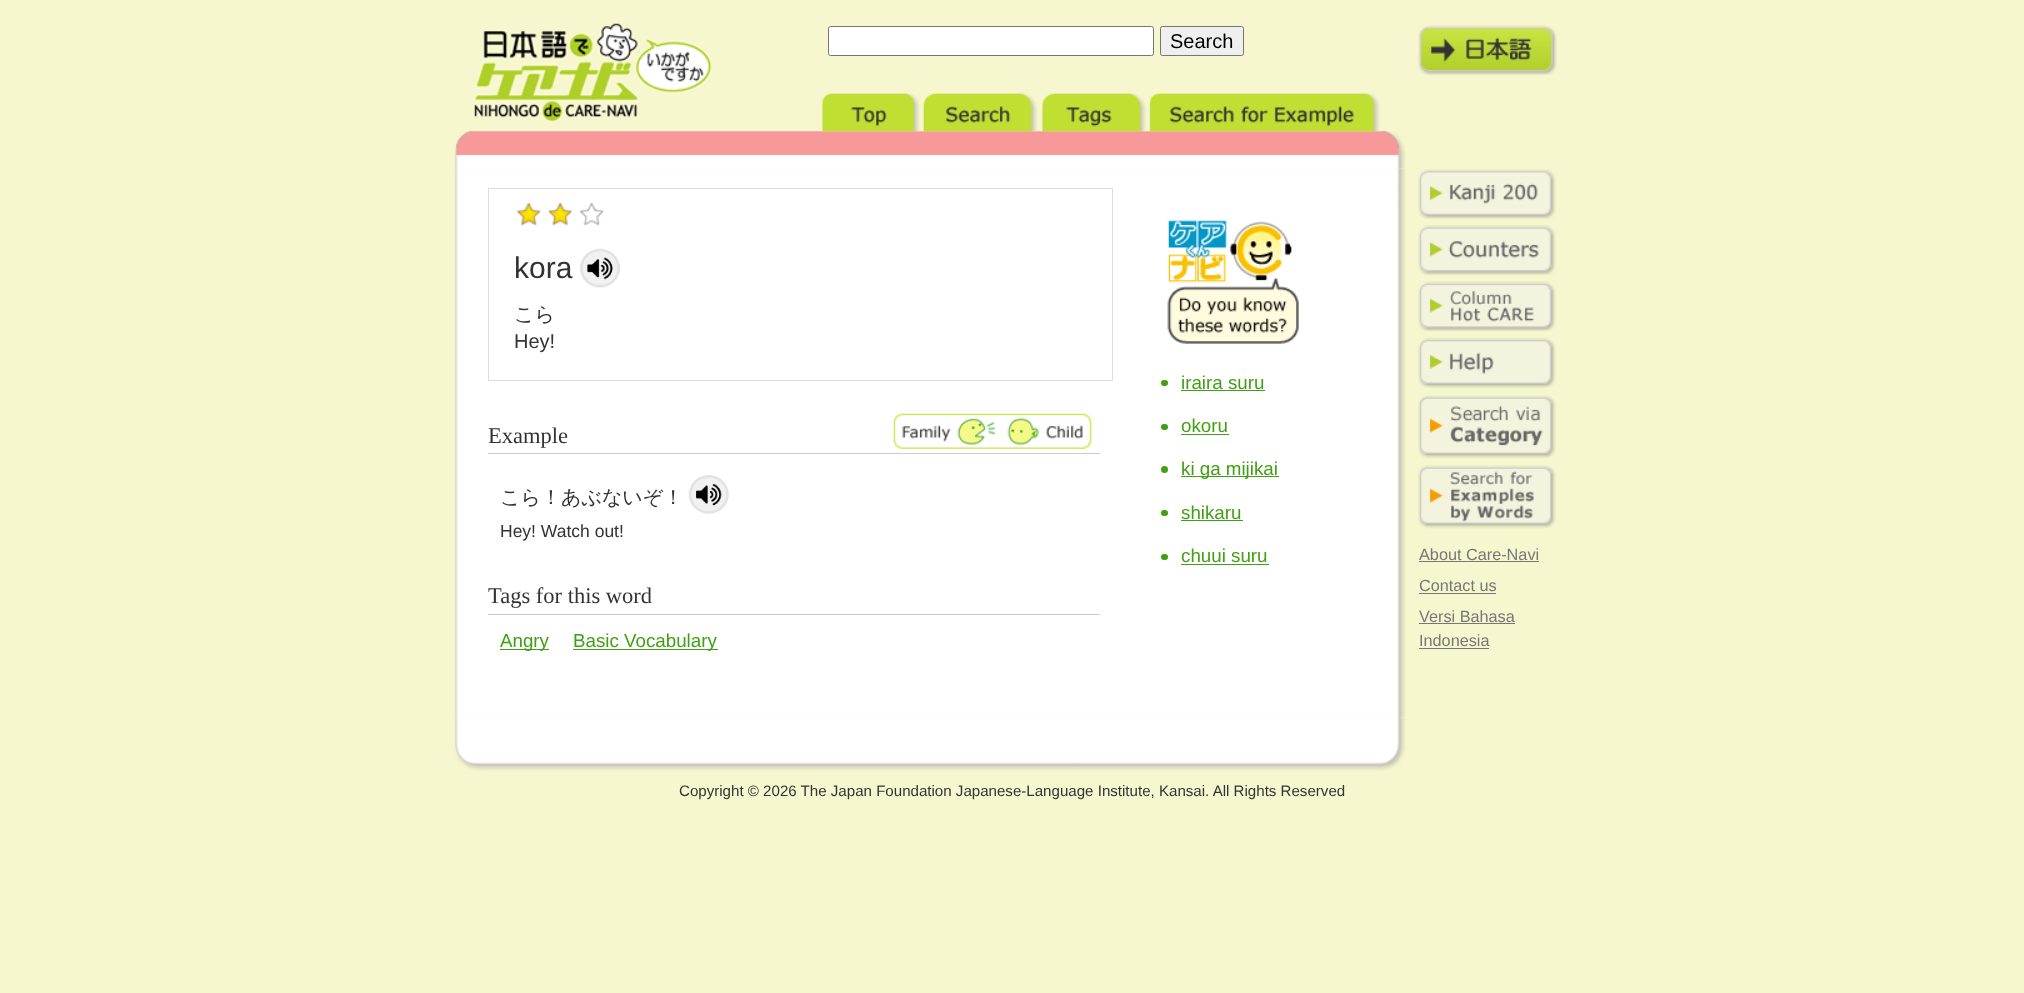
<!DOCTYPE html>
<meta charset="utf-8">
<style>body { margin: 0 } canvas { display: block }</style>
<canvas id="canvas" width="2024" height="993"></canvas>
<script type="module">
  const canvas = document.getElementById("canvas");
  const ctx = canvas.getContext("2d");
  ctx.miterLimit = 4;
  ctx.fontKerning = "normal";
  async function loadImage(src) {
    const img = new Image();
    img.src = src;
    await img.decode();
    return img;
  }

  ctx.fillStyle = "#f7f7cf";
  ctx.fillRect(0, 0, 2024, 993);
  ctx.drawImage(await loadImage("img1.png"), 474, 23, 238, 99);
  ctx.fillStyle = "#ffffff";
  ctx.beginPath();
  ctx.roundRect(828.5, 26.5, 325, 29, 2);
  ctx.fill();
  ctx.strokeStyle = "#767676";
  ctx.stroke();
  ctx.fillStyle = "#efefef";
  ctx.beginPath();
  ctx.roundRect(1160.5, 26.5, 83, 29, 2);
  ctx.fill();
  ctx.stroke();
  ctx.font = "20px Liberation Sans";
  ctx.fillStyle = "#000000";
  ctx.fillText("Search", 1170, 48);
  ctx.drawImage(await loadImage("img2.png"), 1418, 25, 139, 50);
  ctx.drawImage(await loadImage("img3.png"), 454, 131, 952, 38);
  ctx.drawImage(await loadImage("img4.png"), 821, 93, 99, 39);
  ctx.drawImage(await loadImage("img5.png"), 922, 93, 116, 39);
  ctx.drawImage(await loadImage("img6.png"), 1041, 93, 106, 39);
  ctx.drawImage(await loadImage("img7.png"), 1148, 93, 232, 39);
  ctx.drawImage(await loadImage("img20.png"), 454, 717, 952, 54);
  ctx.drawImage(await loadImage("img8.png"), 454, 169, 952, 549);
  ctx.strokeStyle = "#dddddd";
  ctx.strokeRect(488.5, 188.5, 624, 192);
  ctx.drawImage(await loadImage("img9.png"), 516, 202, 88, 24);
  ctx.font = "30px Liberation Sans";
  ctx.fillStyle = "#333333";
  ctx.fillText("kora", 514, 278);
  ctx.drawImage(await loadImage("img10.png"), 580, 248, 40, 40);
  ctx.font = "500 20px WenQuanYi Zen Hei";
  ctx.fillText("こら", 514, 321);
  ctx.font = "20px Liberation Sans";
  ctx.fillText("Hey!", 514, 348);
  ctx.fillStyle = "#cccccc";
  ctx.fillRect(488, 453, 612, 1);
  ctx.font = "22.5px Liberation Serif";
  ctx.fillStyle = "#333333";
  ctx.fillText("Example", 488, 443);
  ctx.drawImage(await loadImage("img11.png"), 893, 413, 199, 36);
  ctx.font = "500 20px WenQuanYi Zen Hei";
  ctx.fillText("こら！あぶないぞ！", 500, 504);
  ctx.drawImage(await loadImage("img12.png"), 688, 475, 41, 39);
  ctx.font = "17.5px Liberation Sans";
  ctx.fillText("Hey! Watch out!", 500, 537);
  ctx.fillStyle = "#cccccc";
  ctx.fillRect(488, 614, 612, 1);
  ctx.font = "22.5px Liberation Serif";
  ctx.fillStyle = "#333333";
  ctx.fillText("Tags for this word", 488, 603);
  ctx.fillStyle = "#419f13";
  ctx.fillRect(500, 649, 49, 1);
  ctx.font = "18.75px Liberation Sans";
  ctx.fillText("Angry", 500, 647);
  ctx.fillRect(573, 649, 145, 1);
  ctx.fillText("Basic Vocabulary", 573, 647);
  ctx.drawImage(await loadImage("img13.png"), 1167, 220, 132, 124);
  ctx.beginPath();
  ctx.roundRect(1161, 380, 7, 6, 3);
  ctx.fill();
  ctx.fillText("iraira suru", 1181, 389);
  ctx.fillRect(1181, 390, 84, 1);
  ctx.beginPath();
  ctx.roundRect(1161, 424, 7, 6, 3);
  ctx.fill();
  ctx.fillText("okoru", 1181, 432);
  ctx.fillRect(1181, 434, 48, 1);
  ctx.beginPath();
  ctx.arc(1164.5, 469.5, 3.5, 0, Math.PI * 2);
  ctx.fill();
  ctx.fillRect(1181, 476, 98, 1);
  ctx.fillText("ki ga mijikai", 1181, 475);
  ctx.beginPath();
  ctx.roundRect(1161, 510, 7, 6, 3);
  ctx.fill();
  ctx.fillText("shikaru", 1181, 519);
  ctx.fillRect(1181, 520, 62, 1);
  ctx.beginPath();
  ctx.roundRect(1161, 554, 7, 6, 3);
  ctx.fill();
  ctx.fillText("chuui suru", 1181, 562);
  ctx.fillRect(1181, 564, 88, 1);
  ctx.drawImage(await loadImage("img14.png"), 1418, 169, 138, 50);
  ctx.drawImage(await loadImage("img15.png"), 1418, 225, 138, 50);
  ctx.drawImage(await loadImage("img16.png"), 1418, 281, 138, 51);
  ctx.drawImage(await loadImage("img17.png"), 1418, 337, 138, 51);
  ctx.fillStyle = "#e9e9c6";
  ctx.fillRect(1428, 387, 118, 1);
  ctx.drawImage(await loadImage("img18.png"), 1418, 395, 138, 64);
  ctx.drawImage(await loadImage("img19.png"), 1418, 465, 138, 64);
  ctx.font = "16.25px Liberation Sans";
  ctx.fillStyle = "#777777";
  ctx.fillText("About Care-Navi", 1419, 560);
  ctx.fillRect(1419, 561, 120, 1);
  ctx.fillText("Contact us", 1419, 591);
  ctx.fillRect(1419, 593, 77, 1);
  ctx.fillText("Versi Bahasa", 1419, 622);
  ctx.fillRect(1419, 623, 96, 1);
  ctx.fillText("Indonesia", 1419, 646);
  ctx.fillRect(1419, 648, 70, 1);
  ctx.font = "15.1px Liberation Sans";
  ctx.fillStyle = "#333333";
  ctx.fillText("Copyright © 2026 The Japan Foundation Japanese-Language Institute, Kansai. All Rights Reserved", 679, 796);
</script>
